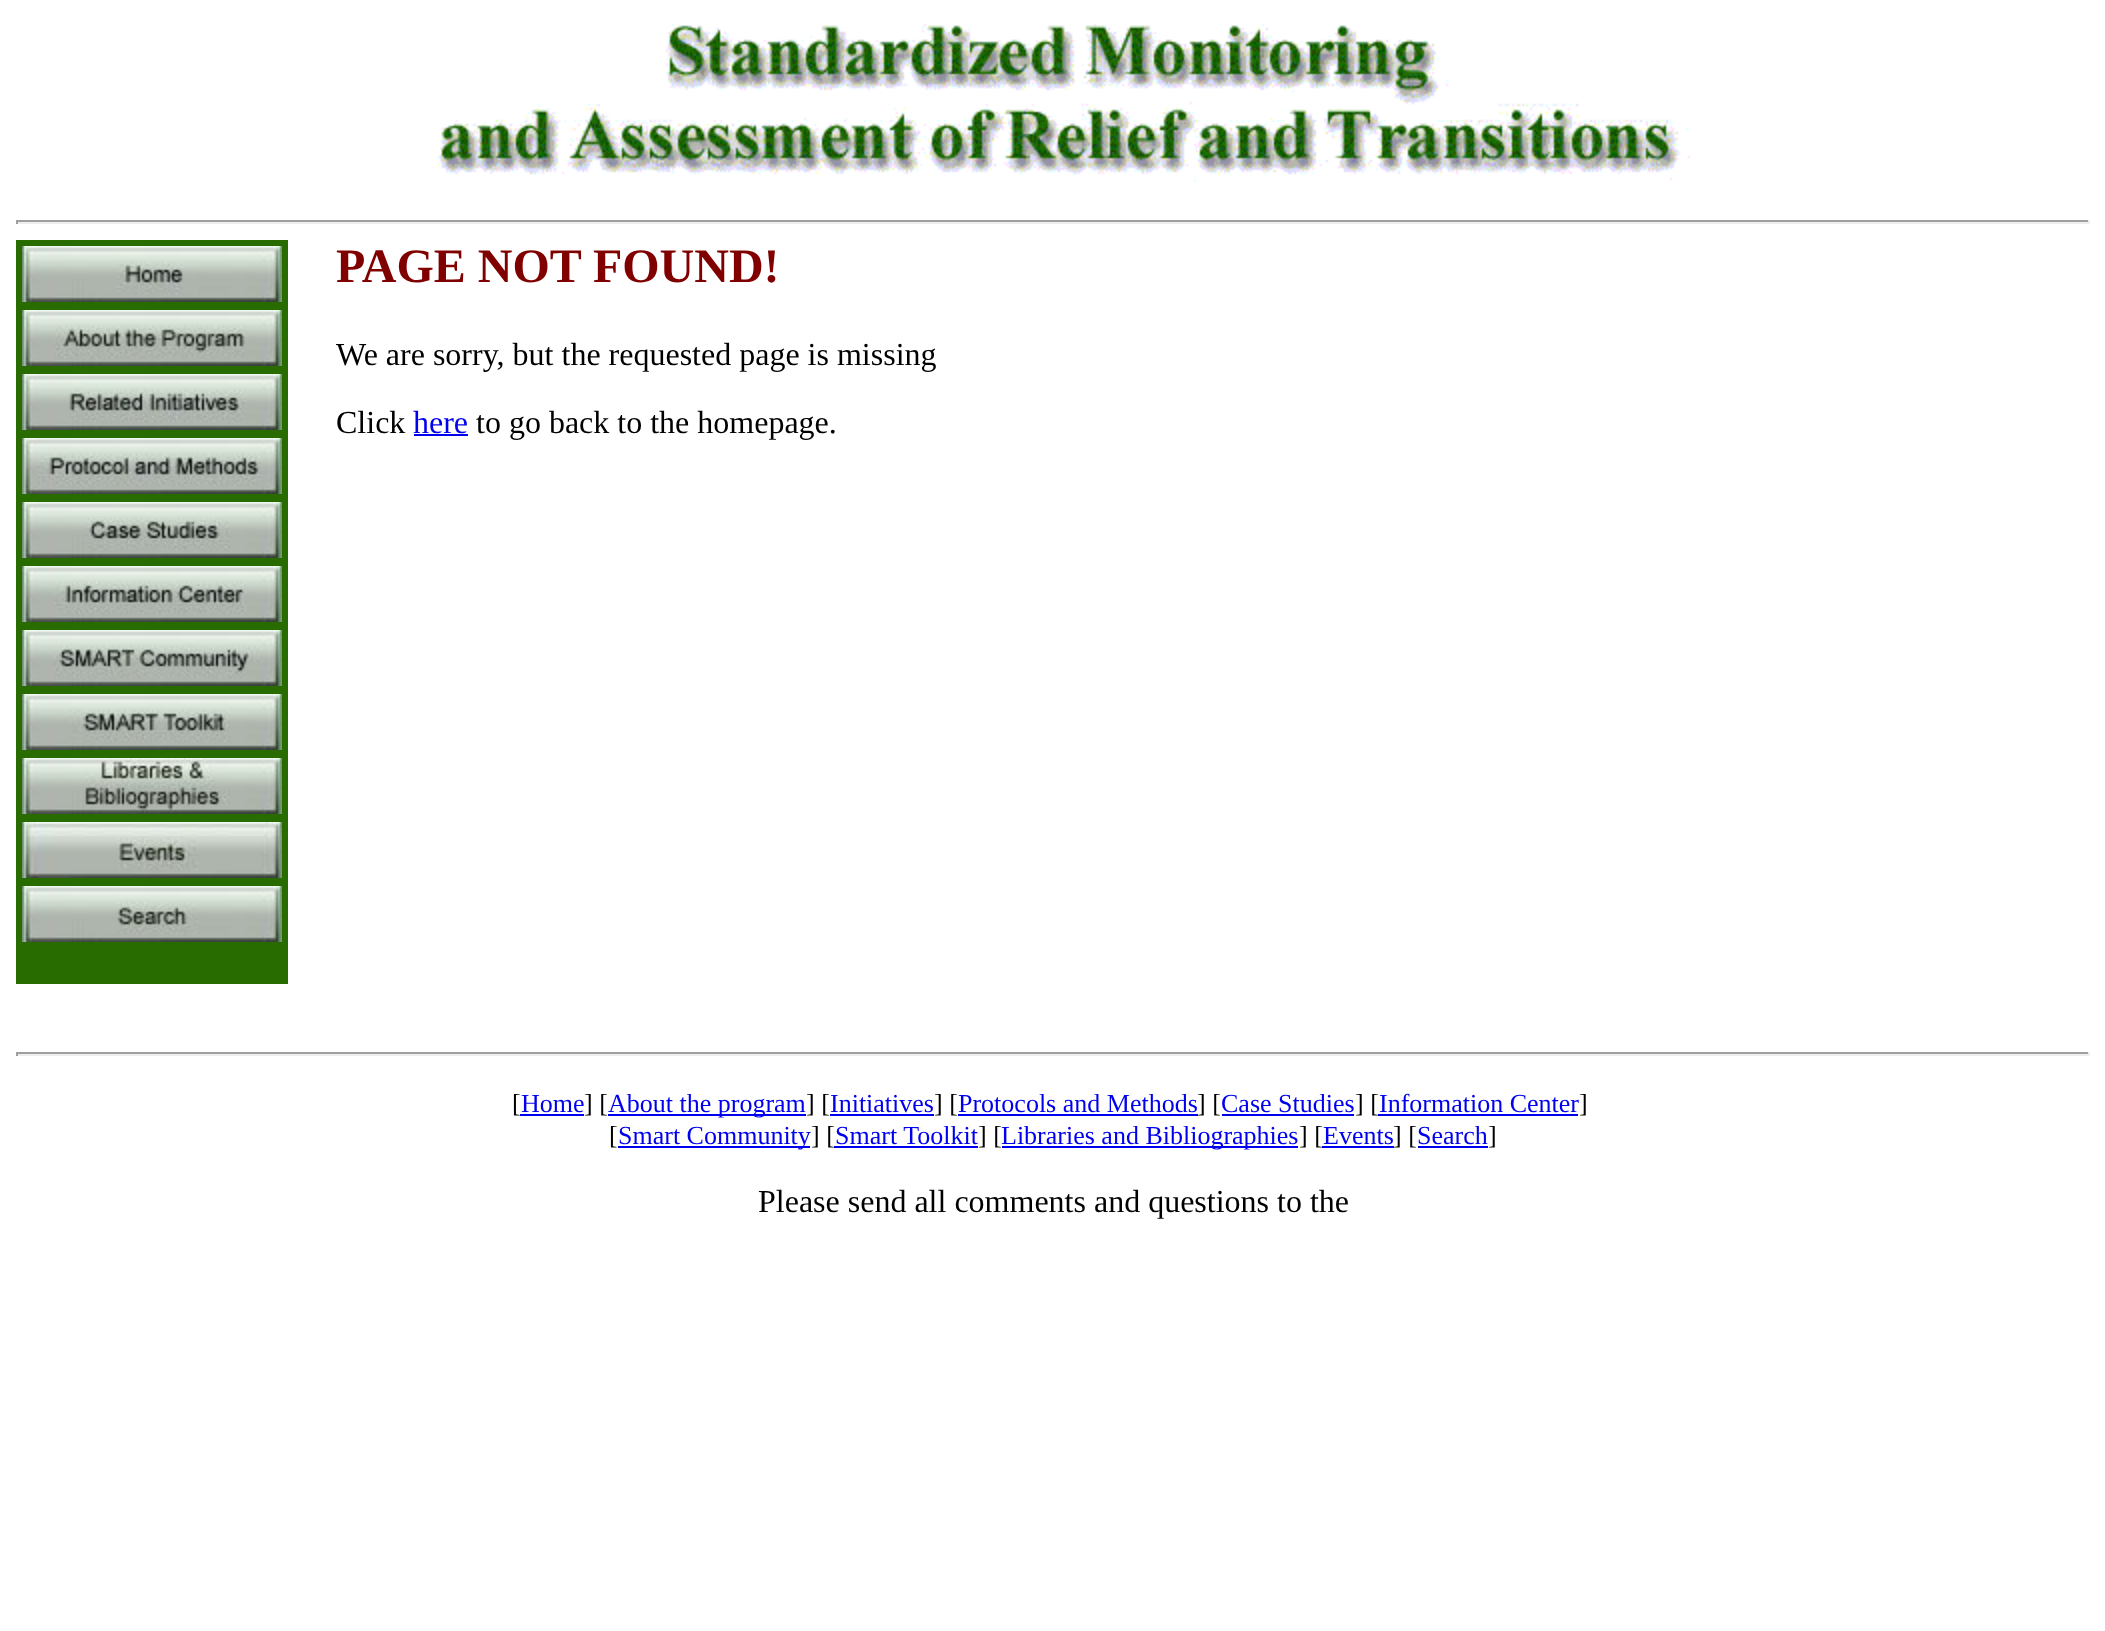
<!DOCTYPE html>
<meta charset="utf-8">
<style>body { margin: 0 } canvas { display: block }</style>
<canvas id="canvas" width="2105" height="1631"></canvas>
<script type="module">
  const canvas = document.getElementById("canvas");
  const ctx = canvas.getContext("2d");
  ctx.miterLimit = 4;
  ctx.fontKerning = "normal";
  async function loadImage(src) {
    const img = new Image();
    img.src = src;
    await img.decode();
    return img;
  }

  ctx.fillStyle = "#ffffff";
  ctx.fillRect(0, 0, 2105, 1631);
  ctx.drawImage(await loadImage("img1.png"), 437, 23, 1254, 160);
  ctx.fillStyle = "#9f9f9f";
  ctx.fillRect(16, 220, 2074, 2);
  ctx.fillStyle = "#eeeeee";
  ctx.fillRect(2088, 220, 2, 4);
  ctx.fillRect(16, 222, 2074, 2);
  ctx.fillStyle = "#9f9f9f";
  ctx.fillRect(16, 220, 2, 4);
  ctx.fillStyle = "#286c00";
  ctx.fillRect(16, 240, 272, 744);
  ctx.drawImage(await loadImage("img2.png"), 22, 246, 260, 56);
  ctx.drawImage(await loadImage("img3.png"), 22, 310, 260, 56);
  ctx.drawImage(await loadImage("img4.png"), 22, 374, 260, 56);
  ctx.drawImage(await loadImage("img5.png"), 22, 438, 260, 56);
  ctx.drawImage(await loadImage("img6.png"), 22, 502, 260, 56);
  ctx.drawImage(await loadImage("img7.png"), 22, 566, 260, 56);
  ctx.drawImage(await loadImage("img8.png"), 22, 630, 260, 56);
  ctx.drawImage(await loadImage("img9.png"), 22, 694, 260, 56);
  ctx.drawImage(await loadImage("img10.png"), 22, 758, 260, 56);
  ctx.drawImage(await loadImage("img11.png"), 22, 822, 260, 56);
  ctx.drawImage(await loadImage("img12.png"), 22, 886, 260, 56);
  ctx.font = "bold 48px Liberation Serif";
  ctx.fillStyle = "#800000";
  ctx.fillText("PAGE NOT FOUND!", 336, 282);
  ctx.font = "32px Liberation Serif";
  ctx.fillStyle = "#000000";
  ctx.fillText("We are sorry, but the requested page is missing", 336, 365);
  ctx.fillText("Click", 336, 433);
  ctx.fillStyle = "#0000ee";
  ctx.fillText("here", 413, 433);
  ctx.fillRect(414, 434, 54, 2);
  ctx.fillStyle = "#000000";
  ctx.fillText("to go back to the homepage.", 476, 433);
  ctx.fillStyle = "#9f9f9f";
  ctx.fillRect(16, 1052, 2074, 2);
  ctx.fillStyle = "#eeeeee";
  ctx.fillRect(2088, 1052, 2, 4);
  ctx.fillRect(16, 1054, 2074, 2);
  ctx.fillStyle = "#9f9f9f";
  ctx.fillRect(16, 1052, 2, 4);
  ctx.font = "26px Liberation Serif";
  ctx.fillStyle = "#000000";
  ctx.fillText("[", 512, 1112);
  ctx.fillStyle = "#0000ee";
  ctx.fillRect(520, 1114, 64, 2);
  ctx.fillText("Home", 521, 1112);
  ctx.fillStyle = "#000000";
  ctx.fillText("] [", 584, 1112);
  ctx.fillStyle = "#0000ee";
  ctx.fillRect(608, 1114, 198, 2);
  ctx.fillText("About the program", 608, 1112);
  ctx.fillStyle = "#000000";
  ctx.fillText("] [", 806, 1112);
  ctx.fillStyle = "#0000ee";
  ctx.fillText("Initiatives", 830, 1112);
  ctx.fillStyle = "#000000";
  ctx.fillText("] [", 934, 1112);
  ctx.fillStyle = "#0000ee";
  ctx.fillRect(830, 1114, 104, 2);
  ctx.fillText("Protocols and Methods", 958, 1112);
  ctx.fillStyle = "#000000";
  ctx.fillText("] [", 1197, 1112);
  ctx.fillStyle = "#0000ee";
  ctx.fillRect(958, 1114, 240, 2);
  ctx.fillRect(1222, 1114, 132, 2);
  ctx.fillText("Case Studies", 1221, 1112);
  ctx.fillStyle = "#000000";
  ctx.fillText("] [", 1355, 1112);
  ctx.fillStyle = "#0000ee";
  ctx.fillRect(1378, 1114, 200, 2);
  ctx.fillText("Information Center", 1379, 1112);
  ctx.fillStyle = "#000000";
  ctx.fillText("]", 1579, 1112);
  ctx.fillText("[", 609, 1144);
  ctx.fillStyle = "#0000ee";
  ctx.fillRect(618, 1146, 192, 2);
  ctx.fillText("Smart Community", 618, 1144);
  ctx.fillStyle = "#000000";
  ctx.fillText("] [", 811, 1144);
  ctx.fillStyle = "#0000ee";
  ctx.fillRect(834, 1146, 144, 2);
  ctx.fillText("Smart Toolkit", 835, 1144);
  ctx.fillStyle = "#000000";
  ctx.fillText("] [", 978, 1144);
  ctx.fillStyle = "#0000ee";
  ctx.fillRect(1002, 1146, 296, 2);
  ctx.fillText("Libraries and Bibliographies", 1001, 1144);
  ctx.fillStyle = "#000000";
  ctx.fillText("] [", 1299, 1144);
  ctx.fillStyle = "#0000ee";
  ctx.fillRect(1322, 1146, 72, 2);
  ctx.fillText("Events", 1323, 1144);
  ctx.fillStyle = "#000000";
  ctx.fillText("] [", 1393, 1144);
  ctx.fillStyle = "#0000ee";
  ctx.fillRect(1418, 1146, 70, 2);
  ctx.fillText("Search", 1417, 1144);
  ctx.fillStyle = "#000000";
  ctx.fillText("]", 1488, 1144);
  ctx.font = "32px Liberation Serif";
  ctx.fillText("Please send all comments and questions to the", 758, 1212);
</script>
